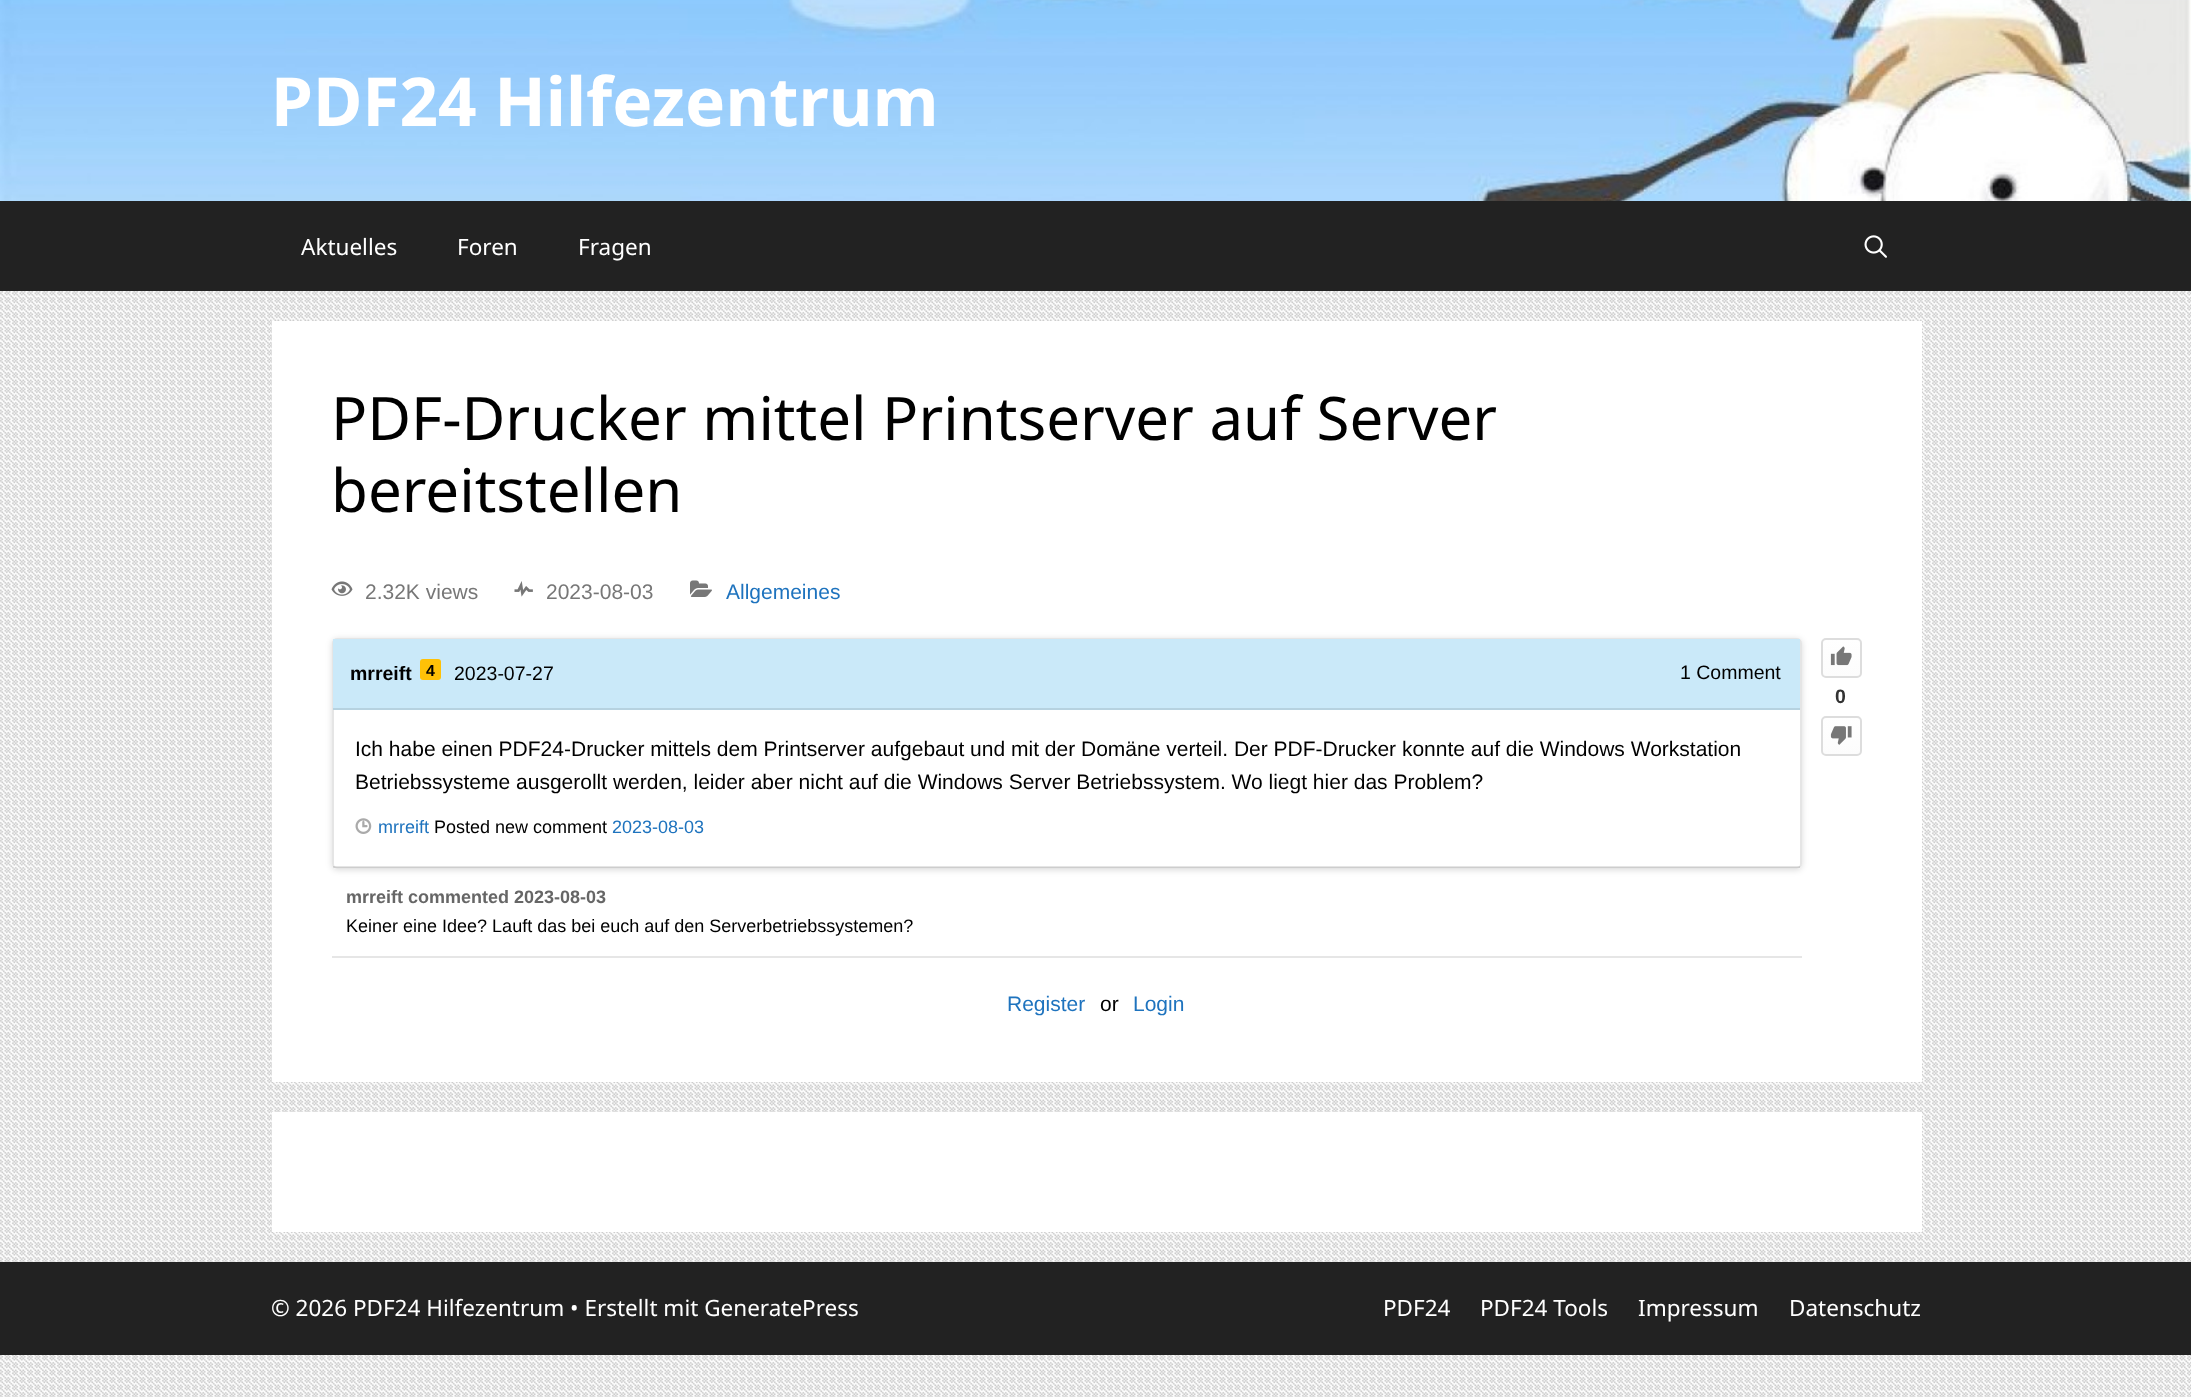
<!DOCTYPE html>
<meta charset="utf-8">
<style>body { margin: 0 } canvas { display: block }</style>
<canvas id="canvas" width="2191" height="1397"></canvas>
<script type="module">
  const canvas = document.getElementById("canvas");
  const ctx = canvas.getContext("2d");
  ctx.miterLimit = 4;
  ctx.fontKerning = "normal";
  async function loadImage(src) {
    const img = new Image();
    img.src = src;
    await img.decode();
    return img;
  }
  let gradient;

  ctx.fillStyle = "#ffffff";
  ctx.fillRect(0, 0, 2191, 1397);
  ctx.drawImage(await loadImage("img1.png"), 0, 291, 2191, 1106);
  ctx.drawImage(await loadImage("img2.png"), 0, 0, 2191, 201);
  ctx.font = "bold 67.5px Noto Sans";
  ctx.fillText("PDF24 Hilfezentrum", 271, 126);
  ctx.fillStyle = "#222222";
  ctx.fillRect(0, 201, 2191, 90);
  ctx.font = "22.5px Noto Sans";
  ctx.fillStyle = "#ffffff";
  ctx.fillText("Aktuelles", 301, 255);
  ctx.fillText("Foren", 457, 255);
  ctx.fillText("Fragen", 578, 255);
  ctx.drawImage(await loadImage("img3.png"), 1864, 235, 23, 23);
  ctx.fillRect(272, 321, 1650, 761);
  ctx.font = "60px Noto Sans";
  ctx.fillStyle = "#000000";
  ctx.fillText("PDF-Drucker mittel Printserver auf Server", 331, 440);
  ctx.fillText("bereitstellen", 331, 512);
  ctx.drawImage(await loadImage("img4.png"), 331, 581, 22, 15);
  ctx.font = "21px Liberation Sans";
  ctx.fillStyle = "#777777";
  ctx.fillText("2.32K views", 365, 599);
  ctx.drawImage(await loadImage("img5.png"), 514, 581, 19, 16);
  ctx.fillText("2023-08-03", 546, 599);
  ctx.drawImage(await loadImage("img6.png"), 690, 580, 22, 17);
  ctx.fillStyle = "#1e73be";
  ctx.fillText("Allgemeines", 726, 599);
  ctx.save();
  ctx.beginPath();
  ctx.moveTo(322, 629);
  ctx.lineTo(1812, 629);
  ctx.lineTo(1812, 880);
  ctx.lineTo(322, 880);
  ctx.closePath();
  ctx.moveTo(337, 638);
  ctx.lineTo(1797, 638);
  ctx.bezierCurveTo(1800, 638, 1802, 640, 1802, 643);
  ctx.lineTo(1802, 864);
  ctx.bezierCurveTo(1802, 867, 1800, 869, 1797, 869);
  ctx.lineTo(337, 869);
  ctx.bezierCurveTo(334, 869, 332, 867, 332, 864);
  ctx.lineTo(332, 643);
  ctx.bezierCurveTo(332, 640, 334, 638, 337, 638);
  ctx.closePath();
  ctx.clip("evenodd");
  ctx.fillStyle = "rgba(0, 0, 0, 0.14)";
  ctx.filter = "blur(3px)";
  ctx.beginPath();
  ctx.roundRect(332, 639, 1470, 231, 5);
  ctx.fill();
  ctx.filter = "none";
  ctx.restore();
  ctx.beginPath();
  ctx.roundRect(333, 639, 1468, 229, 4);
  ctx.strokeStyle = "rgba(0, 0, 0, 0.1)";
  ctx.lineWidth = 2;
  ctx.stroke();
  ctx.fillStyle = "#cae9f9";
  ctx.fillRect(333, 639, 1467, 69);
  ctx.fillStyle = "#b6d2e0";
  ctx.fillRect(333, 708, 1467, 2);
  ctx.font = "bold 19.5px Liberation Sans";
  ctx.fillStyle = "#000000";
  ctx.fillText("mrreift", 350, 680);
  ctx.fillStyle = "#ffc107";
  ctx.beginPath();
  ctx.roundRect(420, 659, 21, 21, 3);
  ctx.fill();
  ctx.font = "bold 16px Liberation Sans";
  ctx.fillStyle = "#000000";
  ctx.fillText("4", 426, 676);
  ctx.font = "19.5px Liberation Sans";
  ctx.fillText("2023-07-27", 454, 680);
  ctx.fillText("1 Comment", 1680, 679);
  ctx.font = "21px Liberation Sans";
  ctx.fillText("Ich habe einen PDF24-Drucker mittels dem Printserver aufgebaut und mit der Domäne verteil. Der PDF-Drucker konnte auf die Windows Workstation", 355, 756);
  ctx.fillText("Betriebssysteme ausgerollt werden, leider aber nicht auf die Windows Server Betriebssystem. Wo liegt hier das Problem?", 355, 789);
  ctx.drawImage(await loadImage("img7.png"), 355, 818, 17, 16);
  ctx.font = "18px Liberation Sans";
  ctx.fillStyle = "#1e73be";
  ctx.fillText("mrreift", 378, 833);
  ctx.fillStyle = "#000000";
  ctx.fillText("Posted new comment", 434, 833);
  ctx.fillStyle = "#1e73be";
  ctx.fillText("2023-08-03", 612, 833);
  ctx.fillStyle = "rgba(0, 0, 0, 0.1)";
  ctx.fillRect(333, 866, 1467, 2);
  ctx.fillStyle = "#e6e6e6";
  ctx.fillRect(332, 956, 1470, 2);
  ctx.font = "bold 18px Liberation Sans";
  ctx.fillStyle = "#666666";
  ctx.fillText("mrreift commented 2023-08-03", 346, 903);
  ctx.font = "18px Liberation Sans";
  ctx.fillStyle = "#000000";
  ctx.fillText("Keiner eine Idee? Lauft das bei euch auf den Serverbetriebssystemen?", 346, 932);
  ctx.save();
  ctx.beginPath();
  ctx.roundRect(1821, 638, 41, 40, 5);
  ctx.clip();
  gradient = ctx.createLinearGradient(1841, 639, 1841, 677);
  gradient.addColorStop(0, "#ffffff");
  gradient.addColorStop(1, "#fcfcfc");
  ctx.fillStyle = gradient;
  ctx.fillRect(1821, 639, 41, 38);
  ctx.restore();
  ctx.beginPath();
  ctx.roundRect(1822, 639, 39, 38, 4);
  ctx.strokeStyle = "#dddddd";
  ctx.stroke();
  ctx.drawImage(await loadImage("img8.png"), 1830, 646, 22, 20);
  ctx.font = "bold 19.5px Liberation Sans";
  ctx.fillStyle = "#333333";
  ctx.fillText("0", 1835, 703);
  ctx.save();
  ctx.beginPath();
  ctx.roundRect(1821, 716, 41, 40, 5);
  ctx.clip();
  gradient = ctx.createLinearGradient(1841, 717, 1841, 755);
  gradient.addColorStop(0, "#ffffff");
  gradient.addColorStop(1, "#fcfcfc");
  ctx.fillStyle = gradient;
  ctx.fillRect(1821, 717, 41, 38);
  ctx.restore();
  ctx.beginPath();
  ctx.roundRect(1822, 717, 39, 38, 4);
  ctx.stroke();
  ctx.drawImage(await loadImage("img9.png"), 1830, 726, 22, 19);
  ctx.font = "21px Liberation Sans";
  ctx.fillStyle = "#1e73be";
  ctx.fillText("Register", 1007, 1011);
  ctx.fillStyle = "#000000";
  ctx.fillText("or", 1100, 1011);
  ctx.fillStyle = "#1e73be";
  ctx.fillText("Login", 1133, 1011);
  ctx.fillStyle = "#ffffff";
  ctx.fillRect(272, 1112, 1650, 120);
  ctx.fillStyle = "#222222";
  ctx.fillRect(0, 1262, 2191, 93);
  ctx.font = "22.5px Noto Sans";
  ctx.fillStyle = "#ffffff";
  ctx.fillText("© 2026 PDF24 Hilfezentrum • Erstellt mit GeneratePress", 271, 1316);
  ctx.fillText("PDF24", 1383, 1316);
  ctx.fillText("PDF24 Tools", 1480, 1316);
  ctx.fillText("Impressum", 1638, 1316);
  ctx.fillText("Datenschutz", 1789, 1316);
</script>
